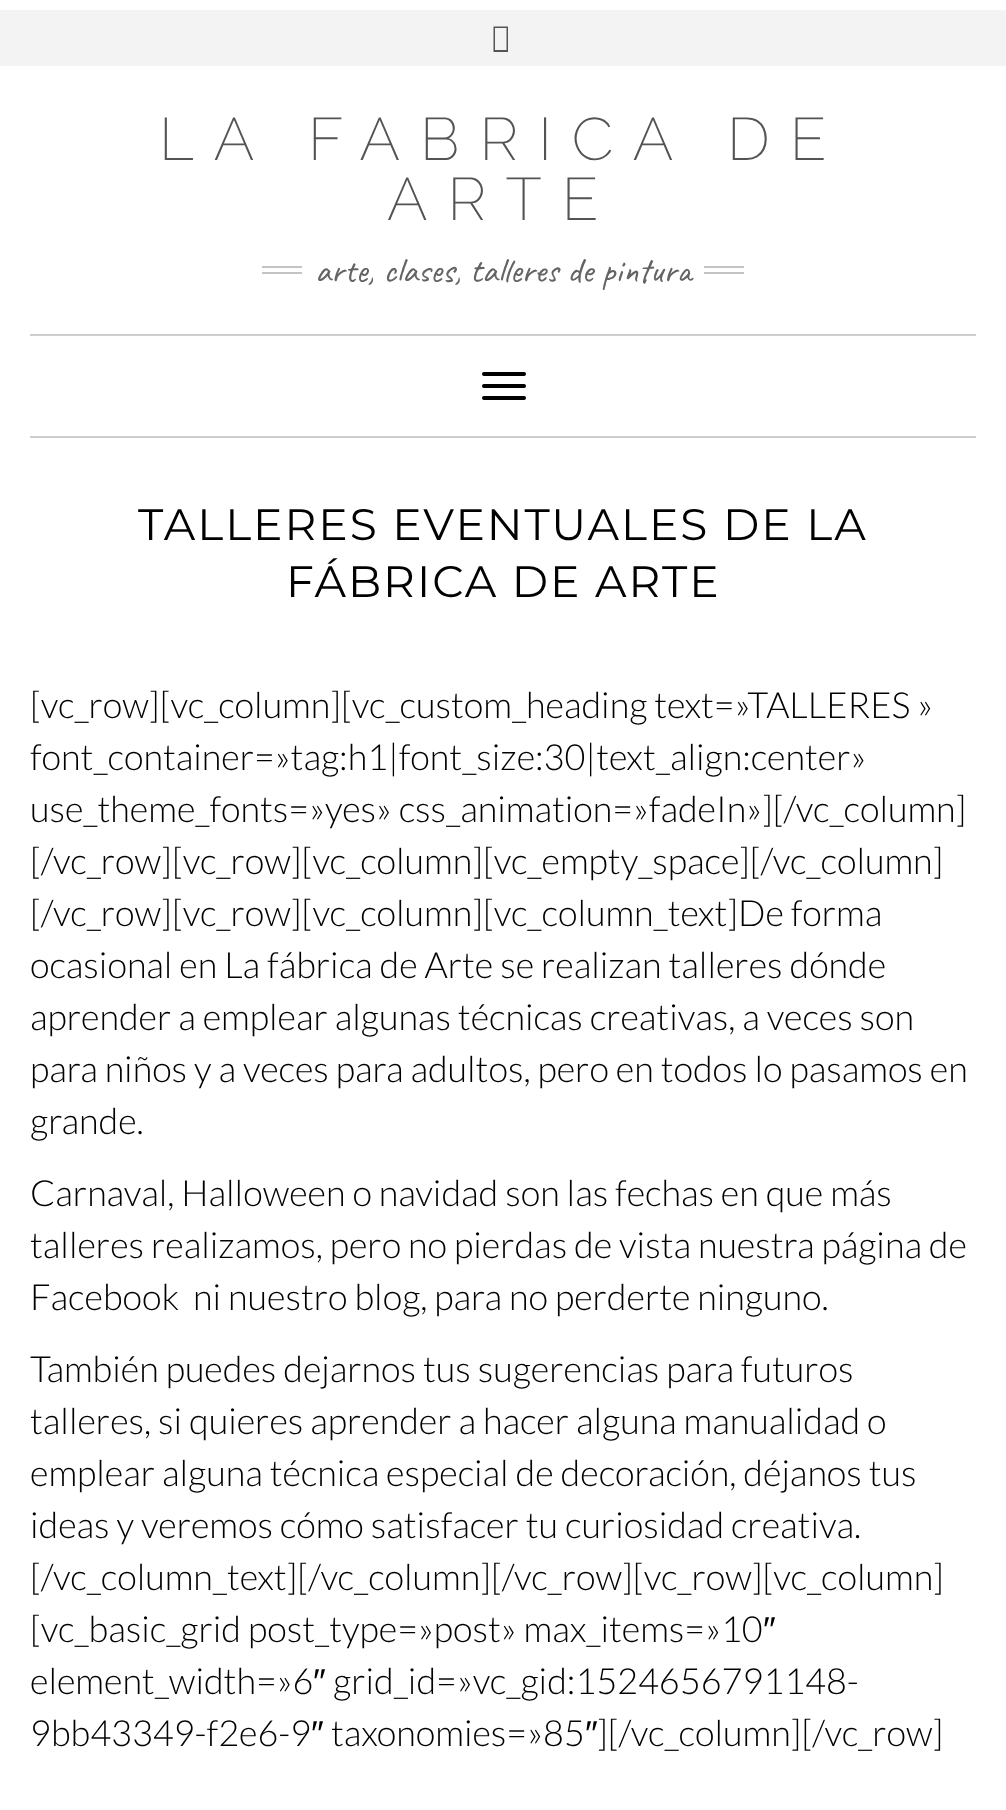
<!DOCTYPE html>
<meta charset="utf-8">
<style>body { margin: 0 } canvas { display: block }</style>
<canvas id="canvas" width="1006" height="1810"></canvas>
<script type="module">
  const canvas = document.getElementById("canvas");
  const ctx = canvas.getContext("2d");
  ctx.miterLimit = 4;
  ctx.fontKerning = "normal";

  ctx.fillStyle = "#ffffff";
  ctx.fillRect(0, 0, 1006, 1810);
  ctx.fillStyle = "#f3f3f3";
  ctx.fillRect(0, 10, 1006, 56);
  ctx.fillStyle = "#545454";
  ctx.beginPath();
  ctx.moveTo(493.5, 52);
  ctx.lineTo(493.5, 26.5);
  ctx.lineTo(508, 26.5);
  ctx.lineTo(508, 52);
  ctx.closePath();
  ctx.moveTo(495, 50);
  ctx.lineTo(506.5, 50);
  ctx.lineTo(506.5, 28);
  ctx.lineTo(495, 28);
  ctx.closePath();
  ctx.fill();
  ctx.letterSpacing = "20px";
  ctx.font = "100 60px Raleway";
  ctx.fillText("LA FABRICA DE", 159, 160);
  ctx.fillText("ARTE", 387, 220);
  ctx.fillStyle = "#c4c4c4";
  ctx.fillRect(262, 266, 40, 2);
  ctx.fillRect(262, 272, 40, 2);
  ctx.letterSpacing = "0px";
  ctx.font = "36px Caveat";
  ctx.fillStyle = "#646464";
  ctx.fillText("arte, clases, talleres de pintura", 315, 282);
  ctx.fillStyle = "#c4c4c4";
  ctx.fillRect(704, 266, 40, 2);
  ctx.fillRect(704, 272, 40, 2);
  ctx.fillStyle = "#cdcdcd";
  ctx.fillRect(30, 334, 946, 2);
  ctx.fillRect(30, 436, 946, 2);
  ctx.fillStyle = "#000000";
  ctx.beginPath();
  ctx.roundRect(482, 372, 44, 4, 2);
  ctx.fill();
  ctx.beginPath();
  ctx.roundRect(482, 384, 44, 4, 2);
  ctx.fill();
  ctx.beginPath();
  ctx.roundRect(482, 396, 44, 4, 2);
  ctx.fill();
  ctx.letterSpacing = "2px";
  ctx.font = "44px Montserrat";
  ctx.fillText("TALLERES EVENTUALES DE LA", 138, 540);
  ctx.fillText("FÁBRICA DE ARTE", 286, 597);
  ctx.letterSpacing = "0px";
  ctx.font = "300 36px Lato";
  ctx.fillText("[vc_row][vc_column][vc_custom_heading text=»TALLERES »", 30, 718);
  ctx.fillText("font_container=»tag:h1|font_size:30|text_align:center»", 30, 770);
  ctx.fillText("use_theme_fonts=»yes» css_animation=»fadeIn»][/vc_column]", 30, 822);
  ctx.fillText("[/vc_row][vc_row][vc_column][vc_empty_space][/vc_column]", 30, 874);
  ctx.fillText("[/vc_row][vc_row][vc_column][vc_column_text]De forma", 30, 926);
  ctx.fillText("ocasional en La fábrica de Arte se realizan talleres dónde", 30, 978);
  ctx.fillText("aprender a emplear algunas técnicas creativas, a veces son", 30, 1030);
  ctx.fillText("para niños y a veces para adultos, pero en todos lo pasamos en", 30, 1082);
  ctx.fillText("grande.", 30, 1134);
  ctx.fillText("Carnaval, Halloween o navidad son las fechas en que más", 30, 1206);
  ctx.fillText("talleres realizamos, pero no pierdas de vista nuestra página de", 30, 1258);
  ctx.fillText("Facebook  ni nuestro blog, para no perderte ninguno.", 30, 1310);
  ctx.fillText("También puedes dejarnos tus sugerencias para futuros", 30, 1382);
  ctx.fillText("talleres, si quieres aprender a hacer alguna manualidad o", 30, 1434);
  ctx.fillText("emplear alguna técnica especial de decoración, déjanos tus", 30, 1486);
  ctx.fillText("ideas y veremos cómo satisfacer tu curiosidad creativa.", 30, 1538);
  ctx.fillText("[/vc_column_text][/vc_column][/vc_row][vc_row][vc_column]", 30, 1590);
  ctx.fillText("[vc_basic_grid post_type=»post» max_items=»10", 30, 1642);
  ctx.font = "36px Liberation Sans";
  ctx.fillText("″", 763, 1642);
  ctx.font = "300 36px Lato";
  ctx.fillText("element_width=»6", 30, 1694);
  ctx.font = "36px Liberation Sans";
  ctx.fillText("″", 313, 1694);
  ctx.font = "300 36px Lato";
  ctx.fillText("grid_id=»vc_gid:1524656791148-", 333, 1694);
  ctx.fillText("9bb43349-f2e6-9", 30, 1746);
  ctx.font = "36px Liberation Sans";
  ctx.fillText("″", 311, 1746);
  ctx.font = "300 36px Lato";
  ctx.fillText("taxonomies=»85", 331, 1746);
  ctx.font = "36px Liberation Sans";
  ctx.fillText("″", 585, 1746);
  ctx.font = "300 36px Lato";
  ctx.fillText("][/vc_column][/vc_row]", 597, 1746);
</script>
